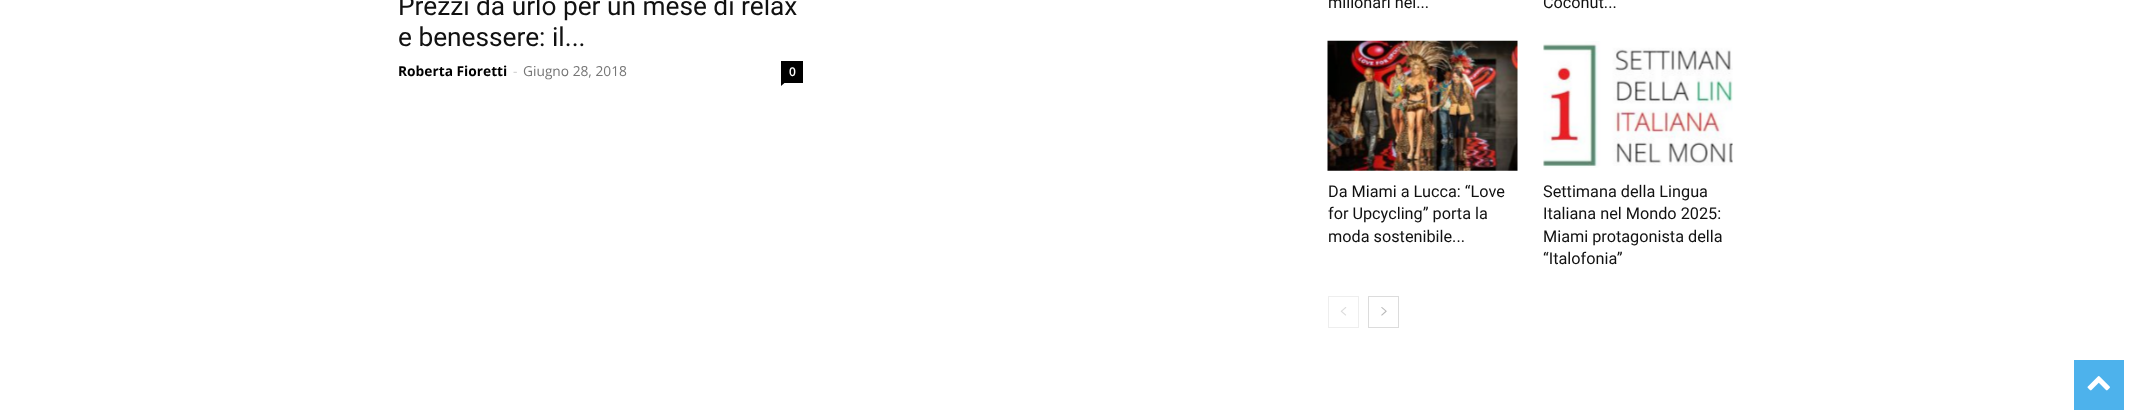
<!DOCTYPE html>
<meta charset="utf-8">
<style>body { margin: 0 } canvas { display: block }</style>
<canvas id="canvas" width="2130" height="415"></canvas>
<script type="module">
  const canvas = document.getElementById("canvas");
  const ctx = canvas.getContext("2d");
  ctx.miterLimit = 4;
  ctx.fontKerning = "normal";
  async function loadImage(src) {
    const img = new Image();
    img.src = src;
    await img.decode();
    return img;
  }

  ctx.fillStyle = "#ffffff";
  ctx.fillRect(0, 0, 2130, 415);
  ctx.font = "26.25px Roboto";
  ctx.fillStyle = "#111111";
  ctx.fillText("Prezzi da urlo per un mese di relax", 398, 15);
  ctx.fillText("e benessere: il...", 398, 46);
  ctx.font = "bold 13.75px Open Sans";
  ctx.fillStyle = "#000000";
  ctx.fillText("Roberta Fioretti", 398, 76);
  ctx.font = "13.75px Open Sans";
  ctx.fillStyle = "#cccccc";
  ctx.fillText("-", 513, 76);
  ctx.fillStyle = "#767676";
  ctx.fillText("Giugno 28, 2018", 523, 76);
  ctx.fillStyle = "#000000";
  ctx.fillRect(781, 61, 22, 22);
  ctx.font = "600 12px Open Sans";
  ctx.fillStyle = "#ffffff";
  ctx.fillText("0", 789, 76);
  ctx.fillStyle = "#000000";
  ctx.beginPath();
  ctx.moveTo(781, 82.5);
  ctx.lineTo(785, 82.5);
  ctx.lineTo(781, 86);
  ctx.closePath();
  ctx.fill();
  ctx.font = "16.25px Roboto";
  ctx.fillStyle = "#111111";
  ctx.fillText("milionari nel...", 1328, 8);
  ctx.fillText("Coconut...", 1543, 8);
  ctx.drawImage(await loadImage("img1.png"), 1327, 40, 191, 131);
  ctx.fillText("Da Miami a Lucca: “Love", 1328, 197);
  ctx.fillText("for Upcycling” porta la", 1328, 219);
  ctx.fillText("moda sostenibile...", 1328, 242);
  ctx.drawImage(await loadImage("img2.png"), 1543, 41, 190, 127);
  ctx.fillText("Settimana della Lingua", 1543, 197);
  ctx.fillText("Italiana nel Mondo 2025:", 1543, 219);
  ctx.fillText("Miami protagonista della", 1543, 242);
  ctx.fillText("“Italofonia”", 1543, 264);
  ctx.strokeStyle = "#eeeeee";
  ctx.strokeRect(1328.5, 296.5, 30, 31);
  ctx.drawImage(await loadImage("img3.png"), 1340, 307, 7, 9);
  ctx.strokeStyle = "#dcdcdc";
  ctx.strokeRect(1368.5, 296.5, 30, 31);
  ctx.drawImage(await loadImage("img4.png"), 1381, 307, 6, 9);
  ctx.fillStyle = "#4db2ec";
  ctx.fillRect(2074, 360, 50, 50);
  ctx.drawImage(await loadImage("img5.png"), 2087, 376, 23, 15);
</script>
